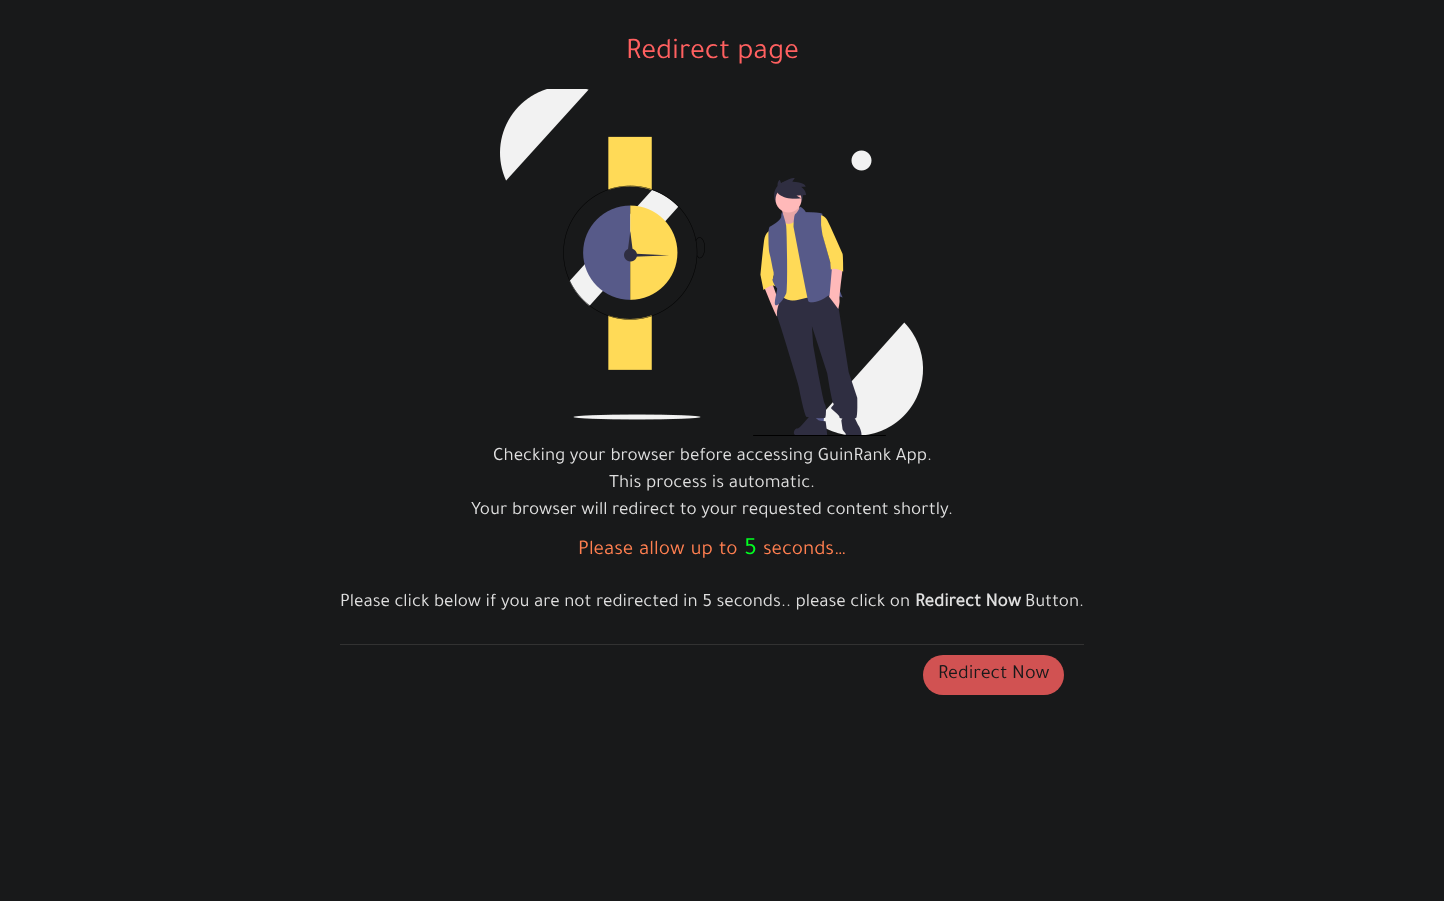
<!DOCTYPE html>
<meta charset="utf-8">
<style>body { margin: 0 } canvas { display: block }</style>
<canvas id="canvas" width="1444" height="901"></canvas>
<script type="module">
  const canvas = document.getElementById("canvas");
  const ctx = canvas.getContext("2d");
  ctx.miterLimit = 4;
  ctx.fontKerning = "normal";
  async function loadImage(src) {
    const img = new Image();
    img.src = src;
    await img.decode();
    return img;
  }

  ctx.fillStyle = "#18191a";
  ctx.fillRect(0, 0, 1444, 901);
  ctx.font = "30px Tajawal";
  ctx.fillStyle = "#ff6060";
  ctx.fillText("Redirect page", 626, 58);
  ctx.drawImage(await loadImage("img1.png"), 500, 89, 423, 347);
  ctx.font = "19px Tajawal";
  ctx.fillStyle = "#dfdfdf";
  ctx.fillText("Checking your browser before accessing GuinRank App.", 493, 460);
  ctx.fillText("This process is automatic.", 609, 487);
  ctx.fillText("Your browser will redirect to your requested content shortly.", 471, 514);
  ctx.wordSpacing = "1px";
  ctx.font = "21px Tajawal";
  ctx.fillStyle = "#ff7f50";
  ctx.fillText("Please allow up to", 578, 554);
  ctx.wordSpacing = "0px";
  ctx.font = "25px Tajawal";
  ctx.fillStyle = "#00ff21";
  ctx.fillText("5", 744, 554);
  ctx.font = "21px Tajawal";
  ctx.fillStyle = "#ff7f50";
  ctx.fillText("seconds…", 763, 554);
  ctx.font = "19px Tajawal";
  ctx.fillStyle = "#dfdfdf";
  ctx.fillText("Please click below if you are not redirected in 5 seconds.. please click on", 340, 606);
  ctx.font = "bold 19px Tajawal";
  ctx.fillText("Redirect Now", 915, 606);
  ctx.font = "19px Tajawal";
  ctx.fillText("Button.", 1025, 606);
  ctx.fillStyle = "#323232";
  ctx.fillRect(340, 644, 744, 1);
  ctx.fillStyle = "#d15252";
  ctx.beginPath();
  ctx.roundRect(923, 655, 141, 40, 20);
  ctx.fill();
  ctx.font = "20px Tajawal";
  ctx.fillStyle = "#18191a";
  ctx.fillText("Redirect Now", 938, 678);
</script>
